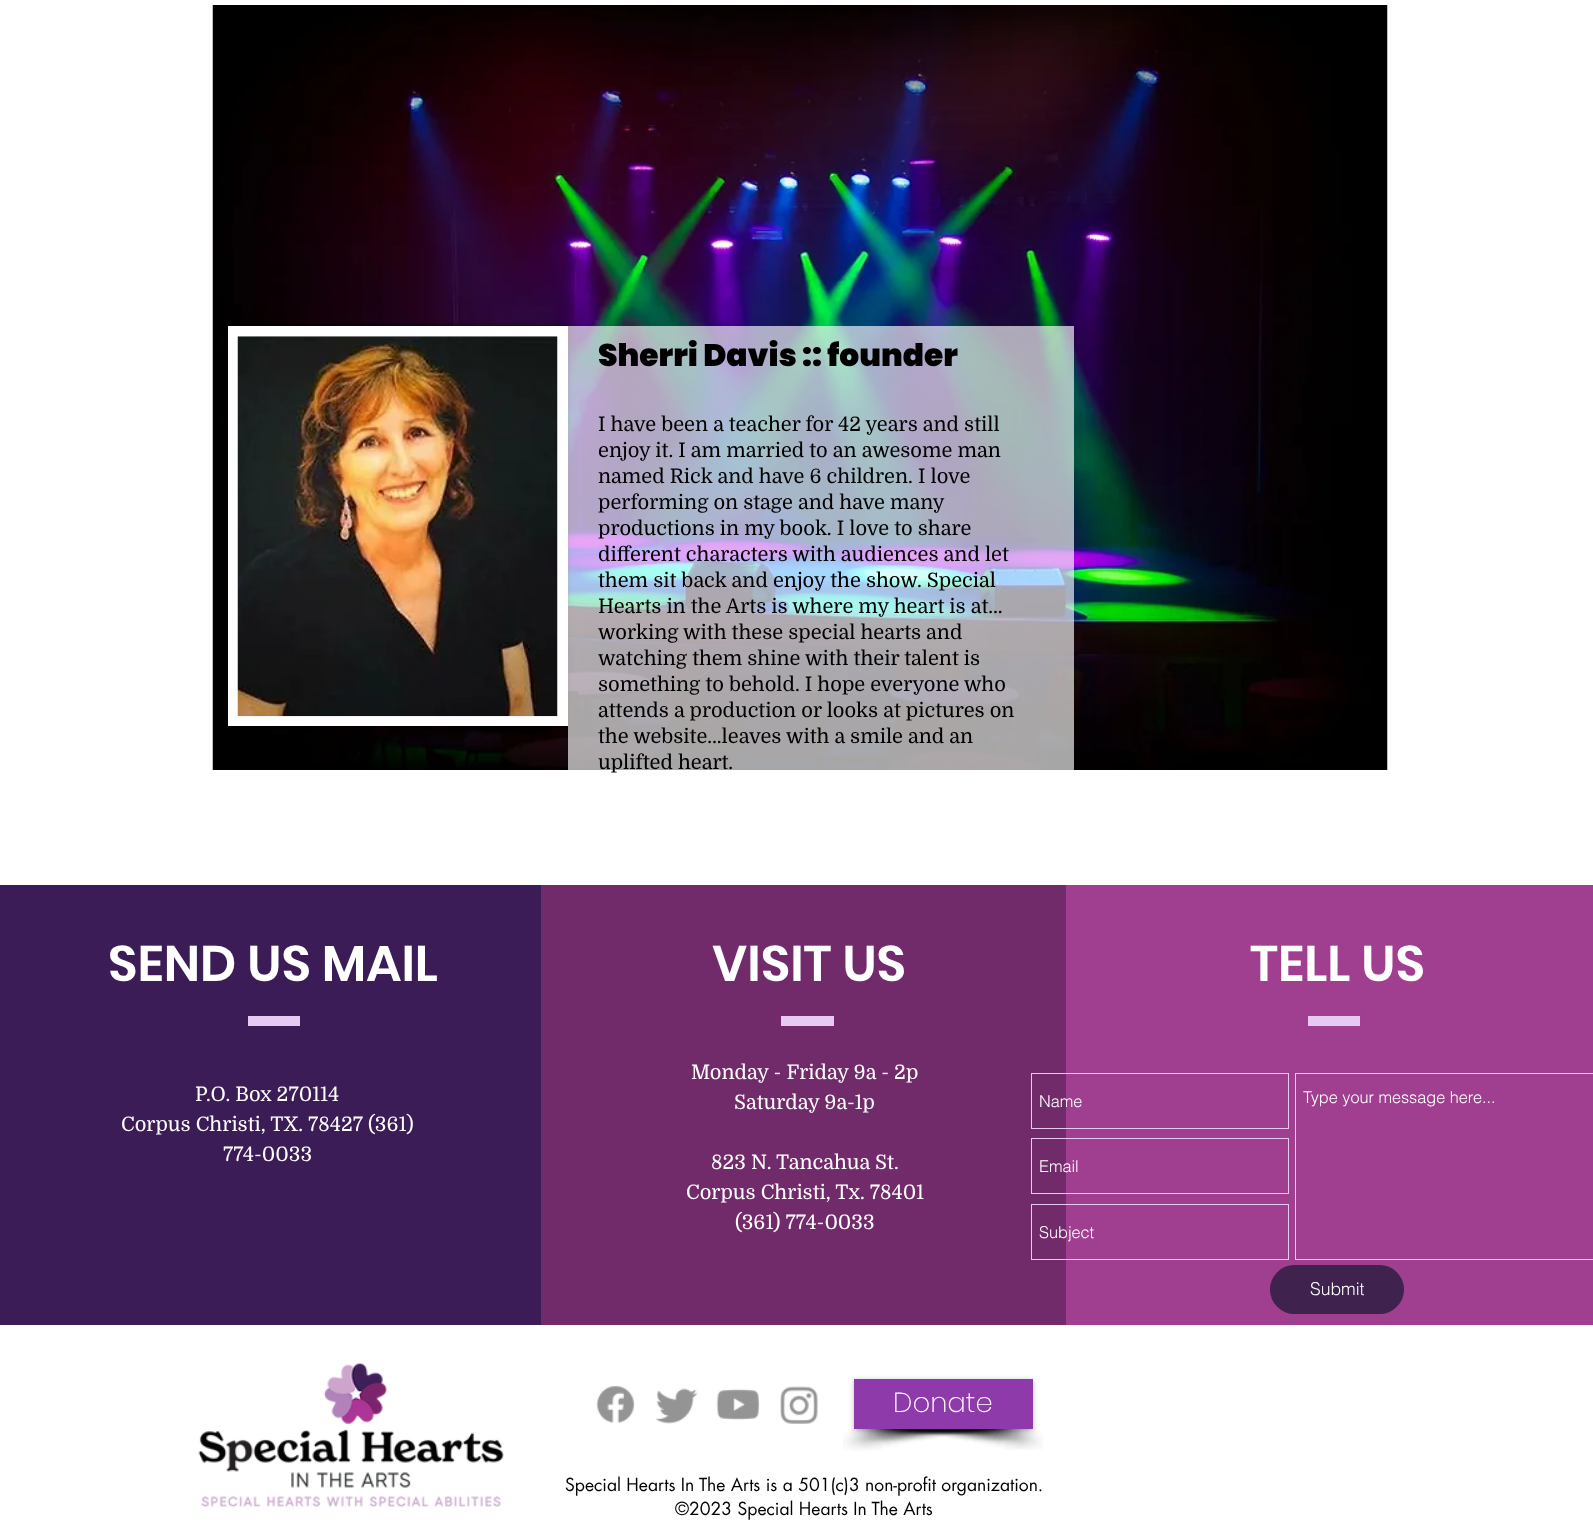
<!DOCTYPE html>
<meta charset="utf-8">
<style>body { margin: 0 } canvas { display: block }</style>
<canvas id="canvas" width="1593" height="1526"></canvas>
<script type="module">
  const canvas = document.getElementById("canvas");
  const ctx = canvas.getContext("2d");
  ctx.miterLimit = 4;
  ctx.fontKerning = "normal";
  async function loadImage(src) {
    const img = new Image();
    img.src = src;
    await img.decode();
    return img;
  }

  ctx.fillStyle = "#ffffff";
  ctx.fillRect(0, 0, 1593, 1526);
  ctx.drawImage(await loadImage("img1.png"), 212, 5, 1176, 765);
  ctx.fillStyle = "rgba(0, 0, 0, 0.5)";
  ctx.filter = "blur(2px)";
  ctx.beginPath();
  ctx.rect(228, 326, 340, 400);
  ctx.fill();
  ctx.filter = "none";
  ctx.fillStyle = "#ffffff";
  ctx.fillRect(228, 326, 340, 400);
  ctx.drawImage(await loadImage("img2.png"), 237, 336, 321, 381);
  ctx.drawImage(await loadImage("img3.png"), 278, 726, 25, 4);
  ctx.drawImage(await loadImage("img4.png"), 449, 726, 103, 9);
  ctx.fillStyle = "rgba(255, 255, 255, 0.65)";
  ctx.fillRect(568, 326, 506, 444);
  ctx.font = "900 31.25px Poppins";
  ctx.fillStyle = "#000000";
  ctx.fillText("Sherri Davis :: founder", 598, 366);
  ctx.font = "20px Domine";
  ctx.fillText("I have been a teacher for 42 years and still", 598, 431);
  ctx.fillText("enjoy it. I am married to an awesome man", 598, 457);
  ctx.fillText("named Rick and have 6 children. I love", 598, 483);
  ctx.fillText("performing on stage and have many", 598, 509);
  ctx.fillText("productions in my book. I love to share", 598, 535);
  ctx.fillText("different characters with audiences and let", 598, 561);
  ctx.fillText("them sit back and enjoy the show. Special", 598, 587);
  ctx.fillText("Hearts in the Arts is where my heart is at…", 598, 613);
  ctx.fillText("working with these special hearts and", 598, 639);
  ctx.fillText("watching them shine with their talent is", 598, 665);
  ctx.fillText("something to behold. I hope everyone who", 598, 691);
  ctx.fillText("attends a production or looks at pictures on", 598, 717);
  ctx.fillText("the website…leaves with a smile and an", 598, 743);
  ctx.fillText("uplifted heart.", 598, 769);
  ctx.fillStyle = "#3b1c56";
  ctx.fillRect(0, 885, 541, 440);
  ctx.font = "600 50px Poppins";
  ctx.fillStyle = "#ffffff";
  ctx.fillText("SEND US MAIL", 108, 981);
  ctx.fillStyle = "#e7caf2";
  ctx.fillRect(248, 1016, 52, 10);
  ctx.font = "20px Domine";
  ctx.fillStyle = "#ffffff";
  ctx.fillText("P.O. Box 270114", 195, 1101);
  ctx.fillText("Corpus Christi, TX. 78427 (361)", 121, 1131);
  ctx.fillText("774-0033", 223, 1161);
  ctx.fillStyle = "#722b6a";
  ctx.fillRect(541, 885, 525, 440);
  ctx.font = "600 50px Poppins";
  ctx.fillStyle = "#ffffff";
  ctx.fillText("VISIT US", 712, 981);
  ctx.fillStyle = "#e7caf2";
  ctx.fillRect(781, 1016, 53, 10);
  ctx.font = "20px Domine";
  ctx.fillStyle = "#ffffff";
  ctx.fillText("Monday - Friday 9a - 2p", 691, 1079);
  ctx.fillText("Saturday 9a-1p", 734, 1109);
  ctx.fillText("823 N. Tancahua St.", 711, 1169);
  ctx.fillText("Corpus Christi, Tx. 78401", 686, 1199);
  ctx.fillText("(361) 774-0033", 735, 1229);
  ctx.fillStyle = "#a03f90";
  ctx.fillRect(1066, 885, 527, 440);
  ctx.font = "600 50px Poppins";
  ctx.fillStyle = "#ffffff";
  ctx.fillText("TELL US", 1250, 981);
  ctx.fillStyle = "#e7caf2";
  ctx.fillRect(1308, 1016, 52, 10);
  ctx.strokeStyle = "#e7caf2";
  ctx.strokeRect(1031.5, 1073.5, 257, 55);
  ctx.font = "300 16.25px helvetica";
  ctx.fillStyle = "#ffffff";
  ctx.fillText("Name", 1039, 1107);
  ctx.strokeRect(1295.5, 1073.5, 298, 186);
  ctx.fillText("Type your message here...", 1303, 1103);
  ctx.strokeRect(1031.5, 1138.5, 257, 55);
  ctx.fillText("Email", 1039, 1172);
  ctx.strokeRect(1031.5, 1204.5, 257, 55);
  ctx.fillText("Subject", 1039, 1238);
  ctx.fillStyle = "#3f224e";
  ctx.beginPath();
  ctx.roundRect(1270, 1265, 134, 49, 24.5);
  ctx.fill();
  ctx.font = "300 17.5px helvetica";
  ctx.fillStyle = "#ffffff";
  ctx.fillText("Submit", 1310, 1295);
  ctx.drawImage(await loadImage("img5.png"), 198, 1362, 306, 146);
  ctx.drawImage(await loadImage("img6.png"), 596, 1385, 39, 38);
  ctx.drawImage(await loadImage("img7.png"), 655, 1388, 43, 36);
  ctx.drawImage(await loadImage("img8.png"), 716, 1388, 44, 32);
  ctx.drawImage(await loadImage("img9.png"), 780, 1386, 38, 38);
  ctx.drawImage(await loadImage("img10.png"), 843, 1429, 186, 22);
  ctx.drawImage(await loadImage("img11.png"), 857, 1429, 186, 21);
  ctx.fillStyle = "rgba(0, 0, 0, 0.28)";
  ctx.filter = "blur(2.5px)";
  ctx.beginPath();
  ctx.rect(854, 1380, 179, 50);
  ctx.fill();
  ctx.filter = "none";
  ctx.fillStyle = "#8e3aab";
  ctx.fillRect(854, 1379, 179, 50);
  ctx.font = "200 27.5px Poppins";
  ctx.fillStyle = "#ffffff";
  ctx.fillText("Donate", 893, 1412);
  ctx.font = "17.5px futura";
  ctx.fillStyle = "#000000";
  ctx.fillText("Special Hearts In The Arts is a 501(c)3 non-profit organization.", 565, 1491);
  ctx.fillText("©2023 Special Hearts In The Arts", 675, 1515);
</script>
